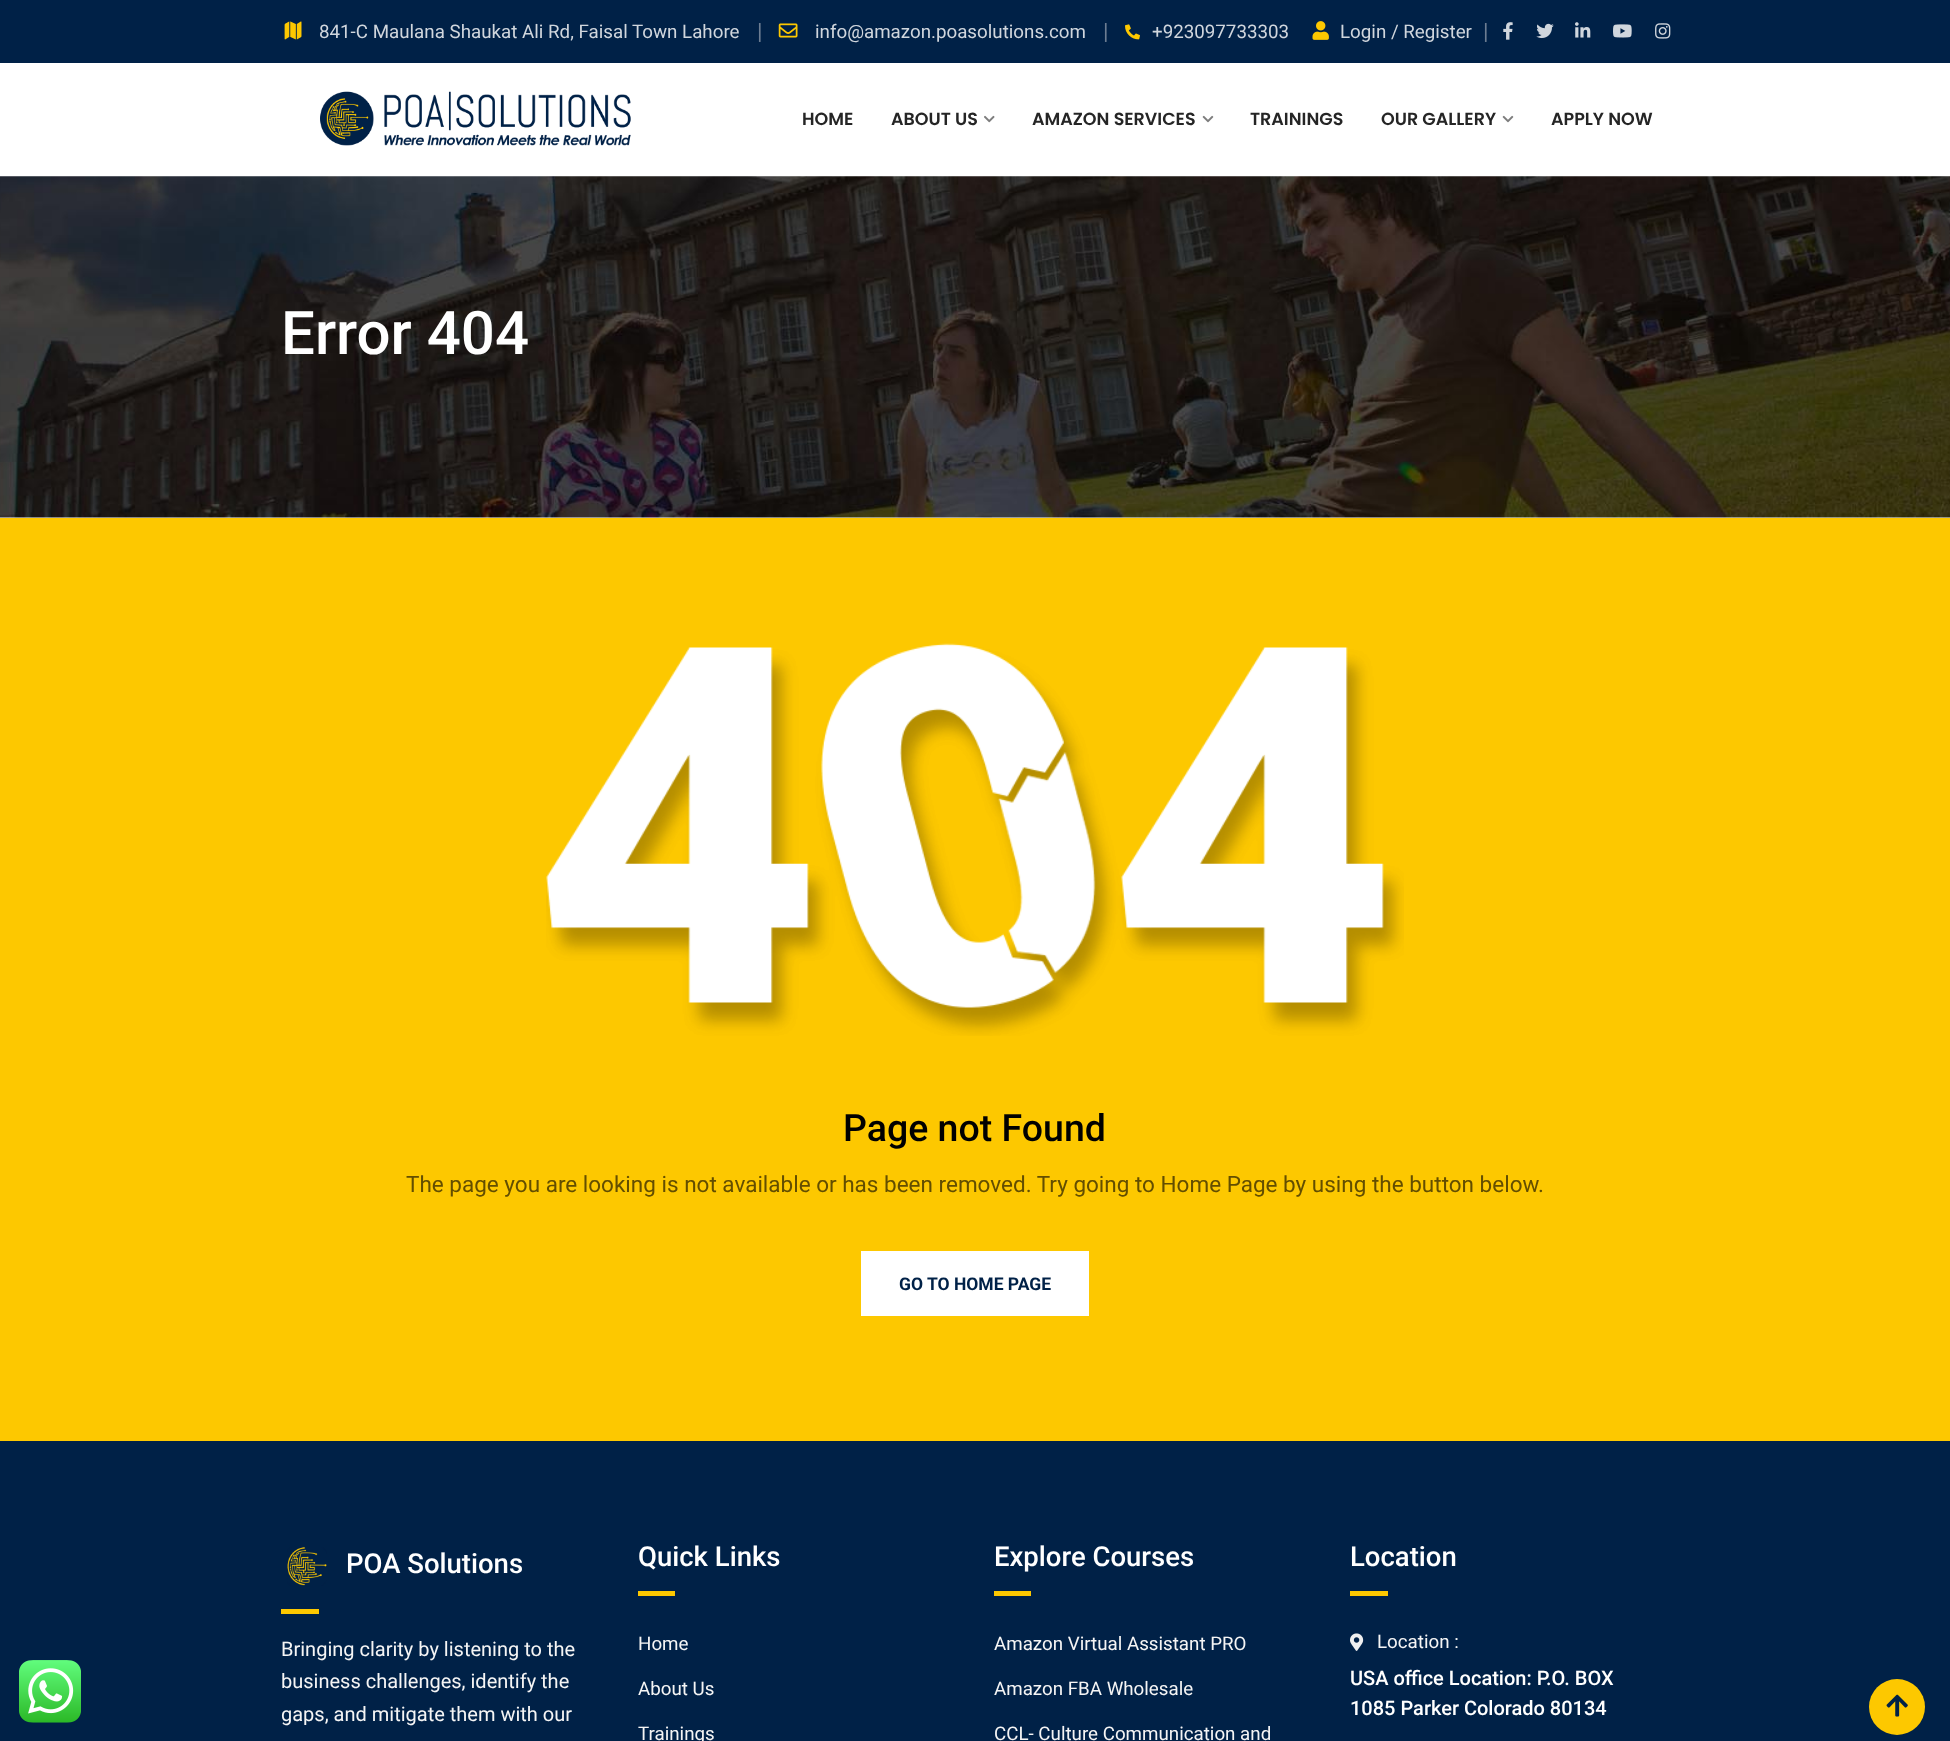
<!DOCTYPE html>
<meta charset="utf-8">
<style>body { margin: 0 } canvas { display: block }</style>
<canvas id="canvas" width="1950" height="1741"></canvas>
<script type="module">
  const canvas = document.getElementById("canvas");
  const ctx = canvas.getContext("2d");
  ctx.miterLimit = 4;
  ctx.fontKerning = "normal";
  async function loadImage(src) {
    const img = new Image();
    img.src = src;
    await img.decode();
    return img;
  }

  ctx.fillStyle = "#ffffff";
  ctx.fillRect(0, 0, 1950, 1741);
  ctx.fillStyle = "#002147";
  ctx.fillRect(0, 1441, 1950, 300);
  ctx.drawImage(await loadImage("img1.png"), 19, 1660, 62, 63);
  ctx.fillRect(0, 0, 1950, 63);
  ctx.drawImage(await loadImage("img2.png"), 284, 21, 18, 19);
  ctx.font = "18.75px Roboto";
  ctx.fillStyle = "#d0d6dd";
  ctx.fillText("841-C Maulana Shaukat Ali Rd, Faisal Town Lahore", 319, 38);
  ctx.letterSpacing = "-1px";
  ctx.font = "22.5px Roboto";
  ctx.fillStyle = "#6c7d92";
  ctx.fillText("|", 757, 39);
  ctx.drawImage(await loadImage("img3.png"), 778, 23, 20, 15);
  ctx.letterSpacing = "0px";
  ctx.font = "18.75px Roboto";
  ctx.fillStyle = "#d0d6dd";
  ctx.fillText("info@amazon.poasolutions.com", 815, 38);
  ctx.letterSpacing = "-1px";
  ctx.font = "22.5px Roboto";
  ctx.fillStyle = "#6c7d92";
  ctx.fillText("|", 1103, 39);
  ctx.drawImage(await loadImage("img4.png"), 1125, 24, 15, 16);
  ctx.letterSpacing = "0px";
  ctx.font = "18.75px Roboto";
  ctx.fillStyle = "#d0d6dd";
  ctx.fillText("+923097733303", 1152, 38);
  ctx.drawImage(await loadImage("img5.png"), 1312, 21, 17, 19);
  ctx.fillText("Login / Register", 1340, 38);
  ctx.letterSpacing = "-1px";
  ctx.font = "22.5px Roboto";
  ctx.fillStyle = "#6c7d92";
  ctx.fillText("|", 1483, 39);
  ctx.drawImage(await loadImage("img6.png"), 1503, 22, 10, 18);
  ctx.drawImage(await loadImage("img7.png"), 1536, 23, 18, 16);
  ctx.drawImage(await loadImage("img8.png"), 1575, 22, 16, 16);
  ctx.drawImage(await loadImage("img9.png"), 1613, 24, 19, 14);
  ctx.drawImage(await loadImage("img10.png"), 1655, 23, 16, 16);
  ctx.drawImage(await loadImage("img11.png"), 320, 91, 311, 55);
  ctx.letterSpacing = "0px";
  ctx.font = "600 17.5px Poppins";
  ctx.fillStyle = "#252525";
  ctx.fillText("HOME", 802, 125);
  ctx.fillText("ABOUT US", 891, 125);
  ctx.drawImage(await loadImage("img12.png"), 984, 115, 11, 8);
  ctx.fillText("AMAZON SERVICES", 1032, 125);
  ctx.drawImage(await loadImage("img13.png"), 1202, 115, 12, 8);
  ctx.fillText("TRAININGS", 1250, 125);
  ctx.fillText("OUR GALLERY", 1381, 125);
  ctx.drawImage(await loadImage("img13.png"), 1502, 115, 12, 8);
  ctx.fillText("APPLY NOW", 1551, 125);
  ctx.drawImage(await loadImage("img14.png"), 0, 176, 1950, 342);
  ctx.font = "500 60px Roboto";
  ctx.fillStyle = "#ffffff";
  ctx.fillText("Error 404", 281, 354);
  ctx.fillStyle = "#fdc800";
  ctx.fillRect(0, 518, 1950, 923);
  ctx.drawImage(await loadImage("img15.png"), 546, 643, 858, 393);
  ctx.font = "500 37.5px Roboto";
  ctx.fillStyle = "#000000";
  ctx.fillText("Page not Found", 843, 1141);
  ctx.font = "22.5px Roboto";
  ctx.fillStyle = "#634e00";
  ctx.fillText("The page you are looking is not available or has been removed. Try going to Home Page by using the button below.", 406, 1192);
  ctx.fillStyle = "#ffffff";
  ctx.fillRect(861, 1251, 228, 65);
  ctx.font = "bold 17.5px Roboto";
  ctx.fillStyle = "#002147";
  ctx.fillText("GO TO HOME PAGE", 899, 1290);
  ctx.drawImage(await loadImage("img16.png"), 287, 1547, 40, 39);
  ctx.font = "500 27.5px Roboto";
  ctx.fillStyle = "#ffffff";
  ctx.fillText("POA Solutions", 346, 1573);
  ctx.fillStyle = "#fdc800";
  ctx.fillRect(281, 1609, 38, 5);
  ctx.font = "20px Roboto";
  ctx.fillStyle = "#f5f5f5";
  ctx.fillText("Bringing clarity by listening to the", 281, 1656);
  ctx.fillText("business challenges, identify the", 281, 1688);
  ctx.fillText("gaps, and mitigate them with our", 281, 1721);
  ctx.font = "500 27.5px Roboto";
  ctx.fillStyle = "#ffffff";
  ctx.fillText("Quick Links", 638, 1566);
  ctx.fillStyle = "#fdc800";
  ctx.fillRect(638, 1591, 37, 5);
  ctx.font = "18.75px Roboto";
  ctx.fillStyle = "#f5f5f5";
  ctx.fillText("Home", 638, 1650);
  ctx.fillText("About Us", 638, 1695);
  ctx.fillText("Trainings", 638, 1740);
  ctx.font = "500 27.5px Roboto";
  ctx.fillStyle = "#ffffff";
  ctx.fillText("Explore Courses", 994, 1566);
  ctx.fillStyle = "#fdc800";
  ctx.fillRect(994, 1591, 37, 5);
  ctx.font = "18.75px Roboto";
  ctx.fillStyle = "#f5f5f5";
  ctx.fillText("Amazon Virtual Assistant PRO", 994, 1650);
  ctx.fillText("Amazon FBA Wholesale", 994, 1695);
  ctx.fillText("CCL- Culture Communication and", 994, 1740);
  ctx.font = "500 27.5px Roboto";
  ctx.fillStyle = "#ffffff";
  ctx.fillText("Location", 1350, 1566);
  ctx.fillStyle = "#fdc800";
  ctx.fillRect(1350, 1591, 38, 5);
  ctx.drawImage(await loadImage("img17.png"), 1350, 1633, 14, 18);
  ctx.font = "18.75px Roboto";
  ctx.fillStyle = "#f5f5f5";
  ctx.fillText("Location :", 1377, 1648);
  ctx.font = "500 20px Roboto";
  ctx.fillStyle = "#ffffff";
  ctx.fillText("USA office Location: P.O. BOX", 1350, 1685);
  ctx.fillText("1085 Parker Colorado 80134", 1350, 1715);
  ctx.fillStyle = "#fdc800";
  ctx.beginPath();
  ctx.arc(1897, 1707, 28, 0, Math.PI * 2);
  ctx.fill();
  ctx.drawImage(await loadImage("img18.png"), 1886, 1694, 22, 23);
</script>
